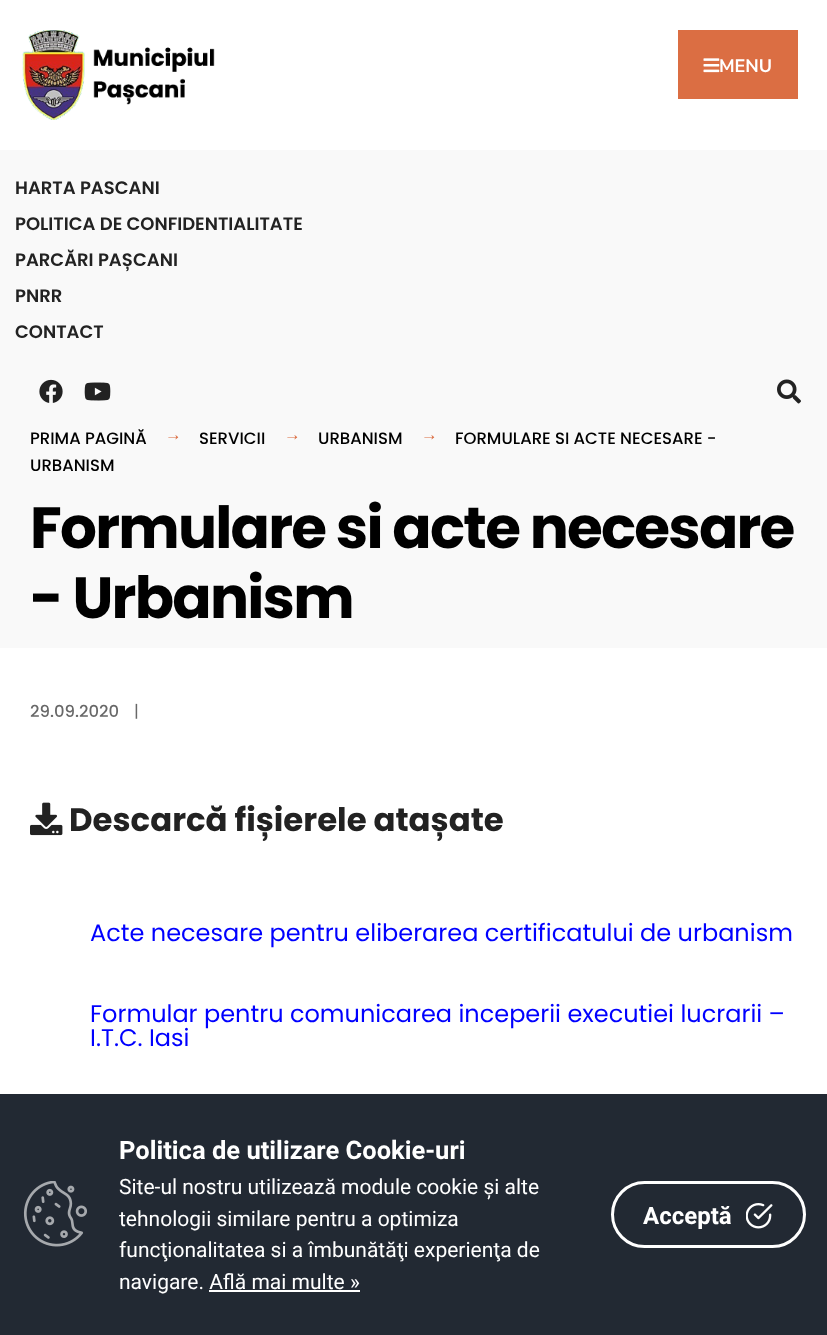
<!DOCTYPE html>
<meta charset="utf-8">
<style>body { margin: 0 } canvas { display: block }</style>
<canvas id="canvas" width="827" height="1335"></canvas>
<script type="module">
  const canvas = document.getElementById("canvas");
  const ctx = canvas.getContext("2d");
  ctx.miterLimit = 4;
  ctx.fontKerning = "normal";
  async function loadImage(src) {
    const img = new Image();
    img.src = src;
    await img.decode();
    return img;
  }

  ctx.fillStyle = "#ffffff";
  ctx.fillRect(0, 0, 827, 1335);
  ctx.drawImage(await loadImage("img1.png"), 22, 30, 193, 90);
  ctx.fillStyle = "#db6e43";
  ctx.fillRect(678, 30, 120, 69);
  ctx.drawImage(await loadImage("img2.png"), 703, 58, 17, 15);
  ctx.font = "bold 18px Nunito Sans";
  ctx.fillStyle = "#ffffff";
  ctx.fillText("MENU", 719, 72);
  ctx.fillStyle = "#f9f9f9";
  ctx.fillRect(0, 150, 827, 498);
  ctx.font = "600 18px Poppins";
  ctx.fillStyle = "#222222";
  ctx.fillText("HARTA PASCANI", 15, 194);
  ctx.fillText("POLITICA DE CONFIDENTIALITATE", 15, 230);
  ctx.fillText("PARCĂRI PAȘCANI", 15, 266);
  ctx.fillText("PNRR", 15, 302);
  ctx.fillText("CONTACT", 15, 338);
  ctx.drawImage(await loadImage("img3.png"), 39, 379, 24, 24);
  ctx.drawImage(await loadImage("img4.png"), 84, 382, 27, 19);
  ctx.drawImage(await loadImage("img5.png"), 777, 379, 24, 25);
  ctx.font = "500 16.5px Poppins";
  ctx.fillStyle = "#000000";
  ctx.fillText("PRIMA PAGINĂ", 30, 444);
  ctx.font = "16.5px Liberation Serif";
  ctx.fillStyle = "#db6e43";
  ctx.fillText("→", 165, 440);
  ctx.font = "500 16.5px Poppins";
  ctx.fillStyle = "#000000";
  ctx.fillText("SERVICII", 199, 444);
  ctx.font = "16.5px Liberation Serif";
  ctx.fillStyle = "#db6e43";
  ctx.fillText("→", 284, 440);
  ctx.font = "500 16.5px Poppins";
  ctx.fillStyle = "#000000";
  ctx.fillText("URBANISM", 318, 444);
  ctx.font = "16.5px Liberation Serif";
  ctx.fillStyle = "#db6e43";
  ctx.fillText("→", 421, 440);
  ctx.font = "500 16.5px Poppins";
  ctx.fillStyle = "#000000";
  ctx.fillText("FORMULARE SI ACTE NECESARE -", 455, 444);
  ctx.fillText("URBANISM", 30, 471);
  ctx.letterSpacing = "-1.75px";
  ctx.font = "bold 58px Poppins";
  ctx.fillText("Formulare si acte necesare", 30, 548);
  ctx.fillText("- Urbanism", 30, 618);
  ctx.letterSpacing = "0px";
  ctx.font = "500 16.5px Poppins";
  ctx.fillStyle = "#686868";
  ctx.fillText("29.09.2020", 30, 717);
  ctx.font = "16.5px Poppins";
  ctx.fillText("|", 134, 717);
  ctx.drawImage(await loadImage("img6.png"), 30, 802, 33, 34);
  ctx.font = "bold 32.4px Poppins";
  ctx.fillStyle = "#222222";
  ctx.fillText("Descarcă fișierele atașate", 69, 831);
  ctx.font = "24px Poppins";
  ctx.fillStyle = "#0000ff";
  ctx.fillText("Acte necesare pentru eliberarea certificatului de urbanism", 90, 941);
  ctx.fillText("Formular pentru comunicarea inceperii executiei lucrarii –", 90, 1022);
  ctx.fillText("I.T.C. Iasi", 90, 1046);
  ctx.fillStyle = "#222933";
  ctx.fillRect(0, 1094, 827, 241);
  ctx.drawImage(await loadImage("img7.png"), 23, 1181, 64, 66);
  ctx.font = "bold 25.5px Roboto";
  ctx.fillStyle = "#ffffff";
  ctx.fillText("Politica de utilizare Cookie-uri", 119, 1159);
  ctx.font = "21px Roboto";
  ctx.fillText("Site-ul nostru utilizează module cookie și alte", 119, 1194);
  ctx.fillText("tehnologii similare pentru a optimiza", 119, 1226);
  ctx.fillText("funcţionalitatea si a îmbunătăţi experienţa de", 119, 1257);
  ctx.fillText("navigare. Află mai multe »", 119, 1289);
  ctx.fillRect(209, 1290, 151, 2);
  ctx.beginPath();
  ctx.roundRect(612.5, 1182.5, 192, 64, 32);
  ctx.strokeStyle = "#ffffff";
  ctx.lineWidth = 3;
  ctx.stroke();
  ctx.font = "bold 24px Roboto";
  ctx.fillText("Acceptă", 643, 1224);
  ctx.drawImage(await loadImage("img8.png"), 746, 1203, 27, 26);
</script>
